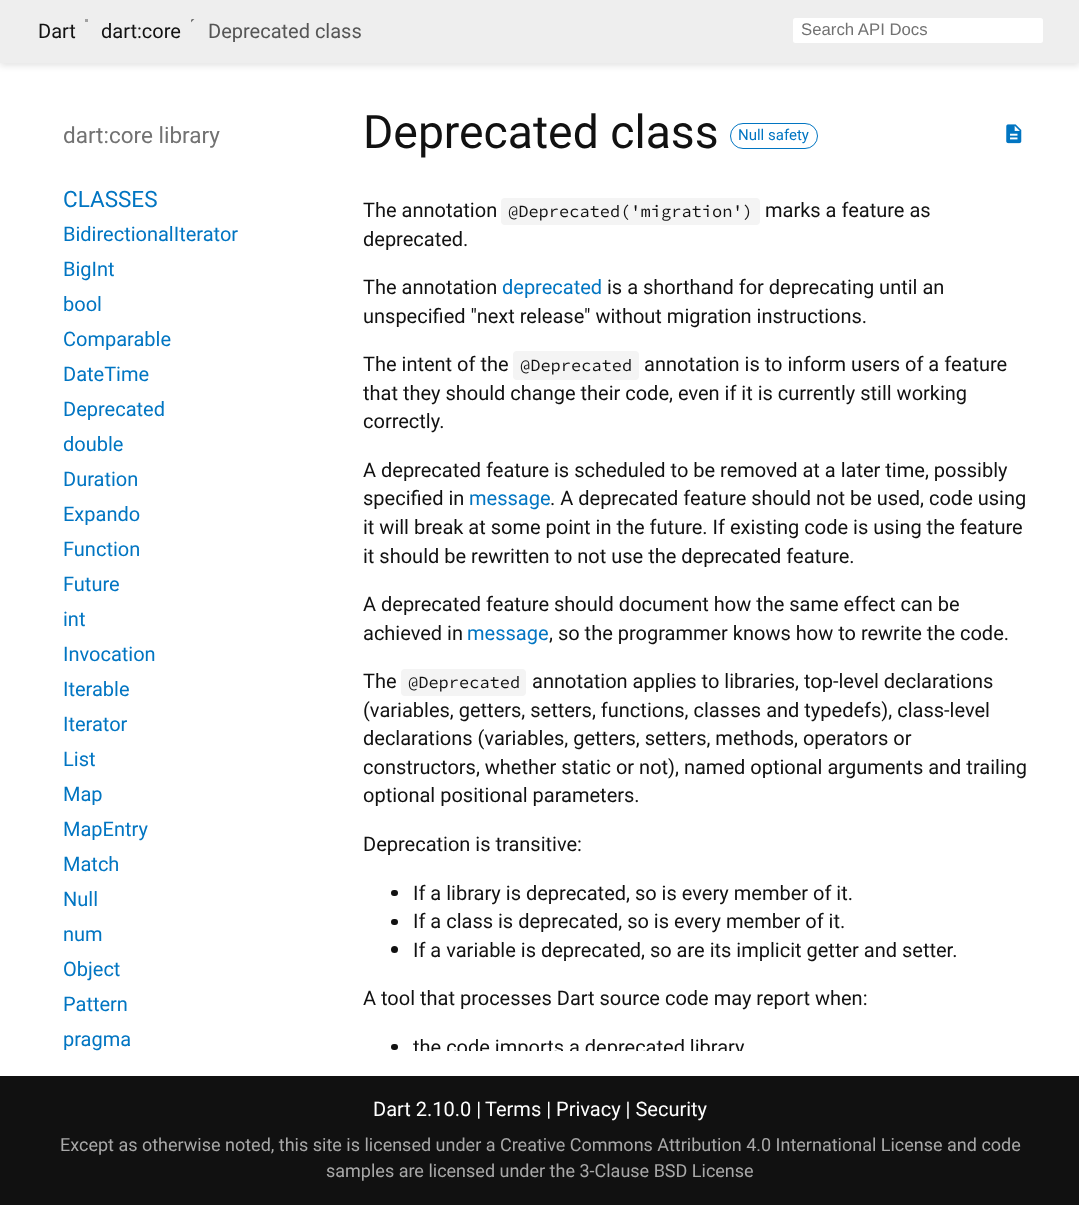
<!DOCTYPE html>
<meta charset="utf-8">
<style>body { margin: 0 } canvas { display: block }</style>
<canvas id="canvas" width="1079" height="1205"></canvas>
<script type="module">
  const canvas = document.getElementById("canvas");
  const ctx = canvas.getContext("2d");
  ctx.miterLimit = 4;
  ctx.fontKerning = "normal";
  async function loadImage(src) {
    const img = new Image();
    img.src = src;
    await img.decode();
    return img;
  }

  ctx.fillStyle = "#ffffff";
  ctx.fillRect(0, 0, 1079, 1205);
  ctx.fillStyle = "rgba(0, 0, 0, 0.1)";
  ctx.filter = "blur(3px)";
  ctx.beginPath();
  ctx.rect(0, 4, 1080, 62);
  ctx.fill();
  ctx.filter = "none";
  ctx.fillStyle = "#eeeeee";
  ctx.fillRect(0, 0, 1079, 63);
  ctx.font = "20px Roboto";
  ctx.fillStyle = "#111111";
  ctx.fillText("Dart", 38, 38);
  ctx.fillStyle = "#a1a1a1";
  ctx.fillRect(85, 19, 3, 3);
  ctx.fillStyle = "#111111";
  ctx.fillText("dart:core", 101, 38);
  ctx.drawImage(await loadImage("img1.png"), 191, 19, 4, 4);
  ctx.fillStyle = "#555555";
  ctx.fillText("Deprecated class", 208, 38);
  ctx.fillStyle = "#ffffff";
  ctx.beginPath();
  ctx.roundRect(793, 18, 250, 25, 2.5);
  ctx.fill();
  ctx.font = "16.75px Liberation Sans";
  ctx.fillStyle = "#727272";
  ctx.fillText("Search API Docs", 801, 35);
  ctx.font = "22.5px Roboto";
  ctx.fillText("dart:core library", 63, 143);
  ctx.fillStyle = "#0175c2";
  ctx.fillText("CLASSES", 63, 207);
  ctx.font = "20px Roboto";
  ctx.fillText("BidirectionalIterator", 63, 241);
  ctx.fillText("BigInt", 63, 276);
  ctx.fillText("bool", 63, 311);
  ctx.fillText("Comparable", 63, 346);
  ctx.fillText("DateTime", 63, 381);
  ctx.fillText("Deprecated", 63, 416);
  ctx.fillText("double", 63, 451);
  ctx.fillText("Duration", 63, 486);
  ctx.fillText("Expando", 63, 521);
  ctx.fillText("Function", 63, 556);
  ctx.fillText("Future", 63, 591);
  ctx.fillText("int", 63, 626);
  ctx.fillText("Invocation", 63, 661);
  ctx.fillText("Iterable", 63, 696);
  ctx.fillText("Iterator", 63, 731);
  ctx.fillText("List", 63, 766);
  ctx.fillText("Map", 63, 801);
  ctx.fillText("MapEntry", 63, 836);
  ctx.fillText("Match", 63, 871);
  ctx.fillText("Null", 63, 906);
  ctx.fillText("num", 63, 941);
  ctx.fillText("Object", 63, 976);
  ctx.fillText("Pattern", 63, 1011);
  ctx.fillText("pragma", 63, 1046);
  ctx.font = "46.25px Roboto";
  ctx.fillStyle = "#111111";
  ctx.fillText("Deprecated class", 363, 148);
  ctx.beginPath();
  ctx.roundRect(730.5, 123.5, 87, 25, 12.5);
  ctx.strokeStyle = "#0175c2";
  ctx.stroke();
  ctx.font = "15px Roboto";
  ctx.fillStyle = "#0175c2";
  ctx.fillText("Null safety", 738, 140);
  ctx.drawImage(await loadImage("img2.png"), 1006, 124, 16, 20);
  ctx.font = "20px Roboto";
  ctx.fillStyle = "#111111";
  ctx.fillText("The annotation", 363, 217);
  ctx.fillStyle = "#f4f4f4";
  ctx.beginPath();
  ctx.roundRect(501, 198, 259, 27, 4);
  ctx.fill();
  ctx.font = "17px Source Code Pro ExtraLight";
  ctx.fillStyle = "#111111";
  ctx.fillText("@Deprecated('migration')", 508, 217);
  ctx.font = "20px Roboto";
  ctx.fillText("marks a feature as", 765, 217);
  ctx.fillText("deprecated.", 363, 246);
  ctx.fillText("The annotation", 363, 294);
  ctx.fillStyle = "#0175c2";
  ctx.fillText("deprecated", 502, 294);
  ctx.fillStyle = "#111111";
  ctx.fillText("is a shorthand for deprecating until an", 607, 294);
  ctx.fillText("unspecified \"next release\" without migration instructions.", 363, 323);
  ctx.fillText("The intent of the", 363, 371);
  ctx.fillStyle = "#f4f4f4";
  ctx.beginPath();
  ctx.roundRect(513, 351, 126, 29, 4);
  ctx.fill();
  ctx.font = "17px Source Code Pro ExtraLight";
  ctx.fillStyle = "#111111";
  ctx.fillText("@Deprecated", 520, 371);
  ctx.font = "20px Roboto";
  ctx.fillText("annotation is to inform users of a feature", 644, 371);
  ctx.fillText("that they should change their code, even if it is currently still working", 363, 400);
  ctx.fillText("correctly.", 363, 428);
  ctx.fillText("A deprecated feature is scheduled to be removed at a later time, possibly", 363, 477);
  ctx.fillText("specified in", 363, 505);
  ctx.fillStyle = "#0175c2";
  ctx.fillText("message", 469, 505);
  ctx.fillStyle = "#111111";
  ctx.fillText(". A deprecated feature should not be used, code using", 550, 505);
  ctx.fillText("it will break at some point in the future. If existing code is using the feature", 363, 534);
  ctx.fillText("it should be rewritten to not use the deprecated feature.", 363, 563);
  ctx.fillText("A deprecated feature should document how the same effect can be", 363, 611);
  ctx.fillText("achieved in", 363, 640);
  ctx.fillStyle = "#0175c2";
  ctx.fillText("message", 467, 640);
  ctx.fillStyle = "#111111";
  ctx.fillText(", so the programmer knows how to rewrite the code.", 549, 640);
  ctx.fillText("The", 363, 688);
  ctx.fillStyle = "#f4f4f4";
  ctx.beginPath();
  ctx.roundRect(401, 669, 125, 27, 4);
  ctx.fill();
  ctx.font = "17px Source Code Pro ExtraLight";
  ctx.fillStyle = "#111111";
  ctx.fillText("@Deprecated", 408, 688);
  ctx.font = "20px Roboto";
  ctx.fillText("annotation applies to libraries, top-level declarations", 532, 688);
  ctx.fillText("(variables, getters, setters, functions, classes and typedefs), class-level", 363, 717);
  ctx.fillText("declarations (variables, getters, setters, methods, operators or", 363, 745);
  ctx.fillText("constructors, whether static or not), named optional arguments and trailing", 363, 774);
  ctx.fillText("optional positional parameters.", 363, 802);
  ctx.fillText("Deprecation is transitive:", 363, 851);
  ctx.beginPath();
  ctx.roundRect(391, 890, 7, 6, 3);
  ctx.fill();
  ctx.fillText("If a library is deprecated, so is every member of it.", 413, 900);
  ctx.beginPath();
  ctx.roundRect(391, 919, 7, 6, 3);
  ctx.fill();
  ctx.fillText("If a class is deprecated, so is every member of it.", 413, 928);
  ctx.beginPath();
  ctx.arc(394.5, 949.5, 3.5, 0, Math.PI * 2);
  ctx.fill();
  ctx.fillText("If a variable is deprecated, so are its implicit getter and setter.", 413, 957);
  ctx.fillText("A tool that processes Dart source code may report when:", 363, 1005);
  ctx.beginPath();
  ctx.roundRect(391, 1044, 7, 6, 3);
  ctx.fill();
  ctx.save();
  ctx.beginPath();
  ctx.rect(338, 88, 717, 963);
  ctx.clip();
  ctx.fillText("the code imports a deprecated library.", 413, 1054);
  ctx.restore();
  ctx.fillRect(0, 1076, 1079, 129);
  ctx.fillStyle = "#ffffff";
  ctx.fillText("Terms | Privacy | Security", 485, 1116);
  ctx.font = "18px Roboto";
  ctx.fillStyle = "#a9a9a9";
  ctx.fillText("Except as otherwise noted, this site is licensed under a Creative Commons Attribution 4.0 International License and code", 60, 1151);
  ctx.fillText("samples are licensed under the 3-Clause BSD License", 326, 1177);
  ctx.font = "20px Roboto";
  ctx.fillStyle = "#ffffff";
  ctx.fillText("Dart 2.10.0 |", 373, 1116);
</script>
